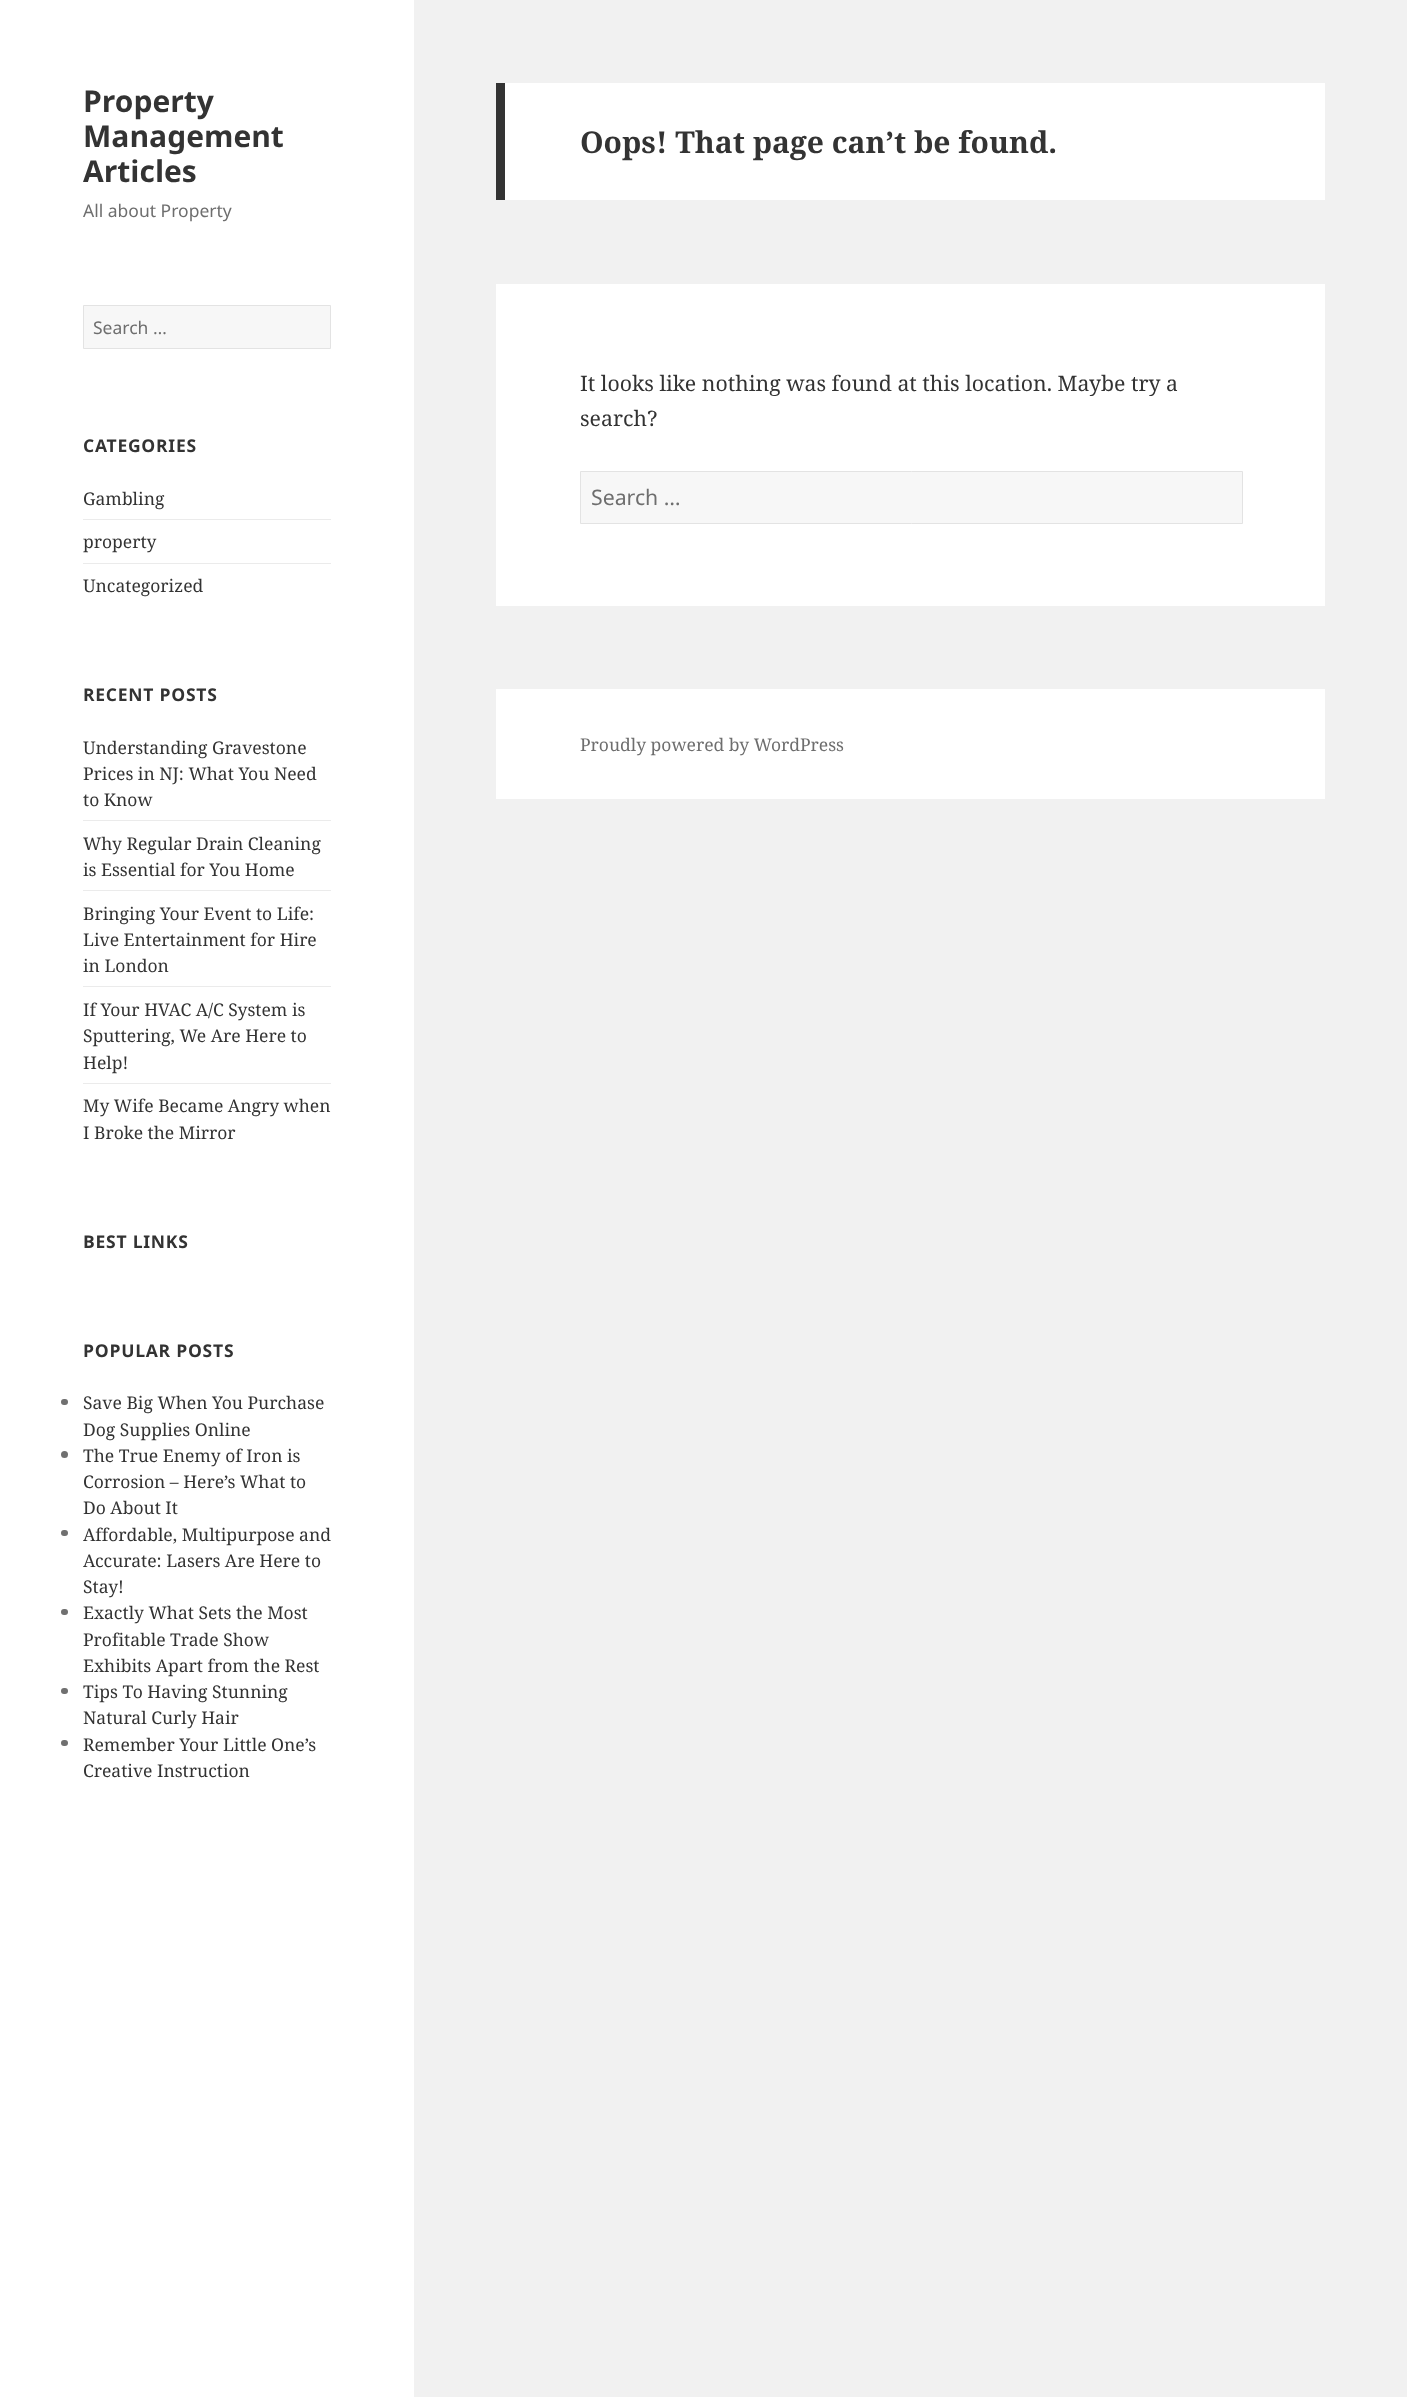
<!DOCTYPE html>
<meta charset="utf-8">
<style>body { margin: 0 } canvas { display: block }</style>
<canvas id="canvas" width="1407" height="2397"></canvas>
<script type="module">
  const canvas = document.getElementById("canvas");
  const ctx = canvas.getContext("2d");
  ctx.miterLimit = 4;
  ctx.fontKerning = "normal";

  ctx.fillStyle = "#f1f1f1";
  ctx.fillRect(0, 0, 1407, 2397);
  ctx.fillStyle = "#ffffff";
  ctx.fillRect(0, 0, 414, 2397);
  ctx.font = "bold 30px Noto Sans";
  ctx.fillStyle = "#333333";
  ctx.fillText("Property", 83, 112);
  ctx.fillText("Management", 83, 147);
  ctx.fillText("Articles", 83, 182);
  ctx.font = "17.5px Noto Sans";
  ctx.fillStyle = "#6e6e6e";
  ctx.fillText("All about Property", 83, 217);
  ctx.fillStyle = "#f7f7f7";
  ctx.beginPath();
  ctx.rect(83.5, 305.5, 247, 43);
  ctx.fill();
  ctx.strokeStyle = "#e3e3e3";
  ctx.stroke();
  ctx.fillStyle = "#6e6e6e";
  ctx.fillText("Search …", 93, 334);
  ctx.letterSpacing = "0.75px";
  ctx.font = "bold 17.5px Noto Sans";
  ctx.fillStyle = "#333333";
  ctx.fillText("CATEGORIES", 83, 452);
  ctx.letterSpacing = "0px";
  ctx.font = "17.5px Noto Serif";
  ctx.fillText("Gambling", 83, 505);
  ctx.fillStyle = "#ebebeb";
  ctx.fillRect(83, 519, 248, 1);
  ctx.fillStyle = "#333333";
  ctx.fillText("property", 83, 548);
  ctx.fillStyle = "#ebebeb";
  ctx.fillRect(83, 563, 248, 1);
  ctx.fillStyle = "#333333";
  ctx.fillText("Uncategorized", 83, 592);
  ctx.letterSpacing = "0.75px";
  ctx.font = "bold 17.5px Noto Sans";
  ctx.fillText("RECENT POSTS", 83, 701);
  ctx.letterSpacing = "0px";
  ctx.font = "17.5px Noto Serif";
  ctx.fillText("Understanding Gravestone", 83, 754);
  ctx.fillText("Prices in NJ: What You Need", 83, 780);
  ctx.fillText("to Know", 83, 806);
  ctx.fillStyle = "#ebebeb";
  ctx.fillRect(83, 820, 248, 1);
  ctx.fillStyle = "#333333";
  ctx.fillText("Why Regular Drain Cleaning", 83, 850);
  ctx.fillText("is Essential for You Home", 83, 876);
  ctx.fillStyle = "#ebebeb";
  ctx.fillRect(83, 890, 248, 1);
  ctx.fillStyle = "#333333";
  ctx.fillText("Bringing Your Event to Life:", 83, 920);
  ctx.fillText("Live Entertainment for Hire", 83, 946);
  ctx.fillText("in London", 83, 972);
  ctx.fillStyle = "#ebebeb";
  ctx.fillRect(83, 986, 248, 1);
  ctx.fillStyle = "#333333";
  ctx.fillText("If Your HVAC A/C System is", 83, 1016);
  ctx.fillText("Sputtering, We Are Here to", 83, 1042);
  ctx.fillText("Help!", 83, 1069);
  ctx.fillStyle = "#ebebeb";
  ctx.fillRect(83, 1083, 248, 1);
  ctx.fillStyle = "#333333";
  ctx.fillText("My Wife Became Angry when", 83, 1112);
  ctx.fillText("I Broke the Mirror", 83, 1139);
  ctx.letterSpacing = "0.75px";
  ctx.font = "bold 17.5px Noto Sans";
  ctx.fillText("BEST LINKS", 83, 1248);
  ctx.fillText("POPULAR POSTS", 83, 1357);
  ctx.fillStyle = "#707070";
  ctx.beginPath();
  ctx.roundRect(61, 1399, 7, 6, 3);
  ctx.fill();
  ctx.letterSpacing = "0px";
  ctx.font = "17.5px Noto Serif";
  ctx.fillStyle = "#333333";
  ctx.fillText("Save Big When You Purchase", 83, 1409);
  ctx.fillText("Dog Supplies Online", 83, 1436);
  ctx.fillStyle = "#707070";
  ctx.beginPath();
  ctx.arc(64.5, 1454.5, 3.5, 0, Math.PI * 2);
  ctx.fill();
  ctx.fillStyle = "#333333";
  ctx.fillText("The True Enemy of Iron is", 83, 1462);
  ctx.fillText("Corrosion – Here’s What to", 83, 1488);
  ctx.fillText("Do About It", 83, 1514);
  ctx.fillStyle = "#707070";
  ctx.beginPath();
  ctx.roundRect(61, 1530, 7, 6, 3);
  ctx.fill();
  ctx.fillStyle = "#333333";
  ctx.fillText("Affordable, Multipurpose and", 83, 1541);
  ctx.fillText("Accurate: Lasers Are Here to", 83, 1567);
  ctx.fillText("Stay!", 83, 1593);
  ctx.fillStyle = "#707070";
  ctx.beginPath();
  ctx.roundRect(61, 1609, 7, 6, 3);
  ctx.fill();
  ctx.fillStyle = "#333333";
  ctx.fillText("Exactly What Sets the Most", 83, 1619);
  ctx.fillText("Profitable Trade Show", 83, 1646);
  ctx.fillText("Exhibits Apart from the Rest", 83, 1672);
  ctx.fillStyle = "#707070";
  ctx.beginPath();
  ctx.roundRect(61, 1688, 7, 6, 3);
  ctx.fill();
  ctx.fillStyle = "#333333";
  ctx.fillText("Tips To Having Stunning", 83, 1698);
  ctx.fillText("Natural Curly Hair", 83, 1724);
  ctx.fillStyle = "#707070";
  ctx.beginPath();
  ctx.roundRect(61, 1740, 7, 6, 3);
  ctx.fill();
  ctx.fillStyle = "#333333";
  ctx.fillText("Remember Your Little One’s", 83, 1751);
  ctx.fillText("Creative Instruction", 83, 1777);
  ctx.fillStyle = "#ffffff";
  ctx.fillRect(505, 83, 820, 117);
  ctx.fillStyle = "#333333";
  ctx.fillRect(496, 83, 9, 117);
  ctx.font = "bold 30px Noto Serif";
  ctx.fillText("Oops! That page can’t be found.", 580, 153);
  ctx.fillStyle = "#ffffff";
  ctx.fillRect(496, 284, 829, 322);
  ctx.font = "21.25px Noto Serif";
  ctx.fillStyle = "#333333";
  ctx.fillText("It looks like nothing was found at this location. Maybe try a", 580, 391);
  ctx.fillText("search?", 580, 426);
  ctx.fillStyle = "#f7f7f7";
  ctx.beginPath();
  ctx.rect(580.5, 471.5, 662, 52);
  ctx.fill();
  ctx.stroke();
  ctx.font = "21.25px Noto Sans";
  ctx.fillStyle = "#6e6e6e";
  ctx.fillText("Search …", 591, 505);
  ctx.fillStyle = "#ffffff";
  ctx.fillRect(496, 689, 829, 110);
  ctx.font = "17.5px Noto Serif";
  ctx.fillStyle = "#6e6e6e";
  ctx.fillText("Proudly powered by WordPress", 580, 751);
</script>
